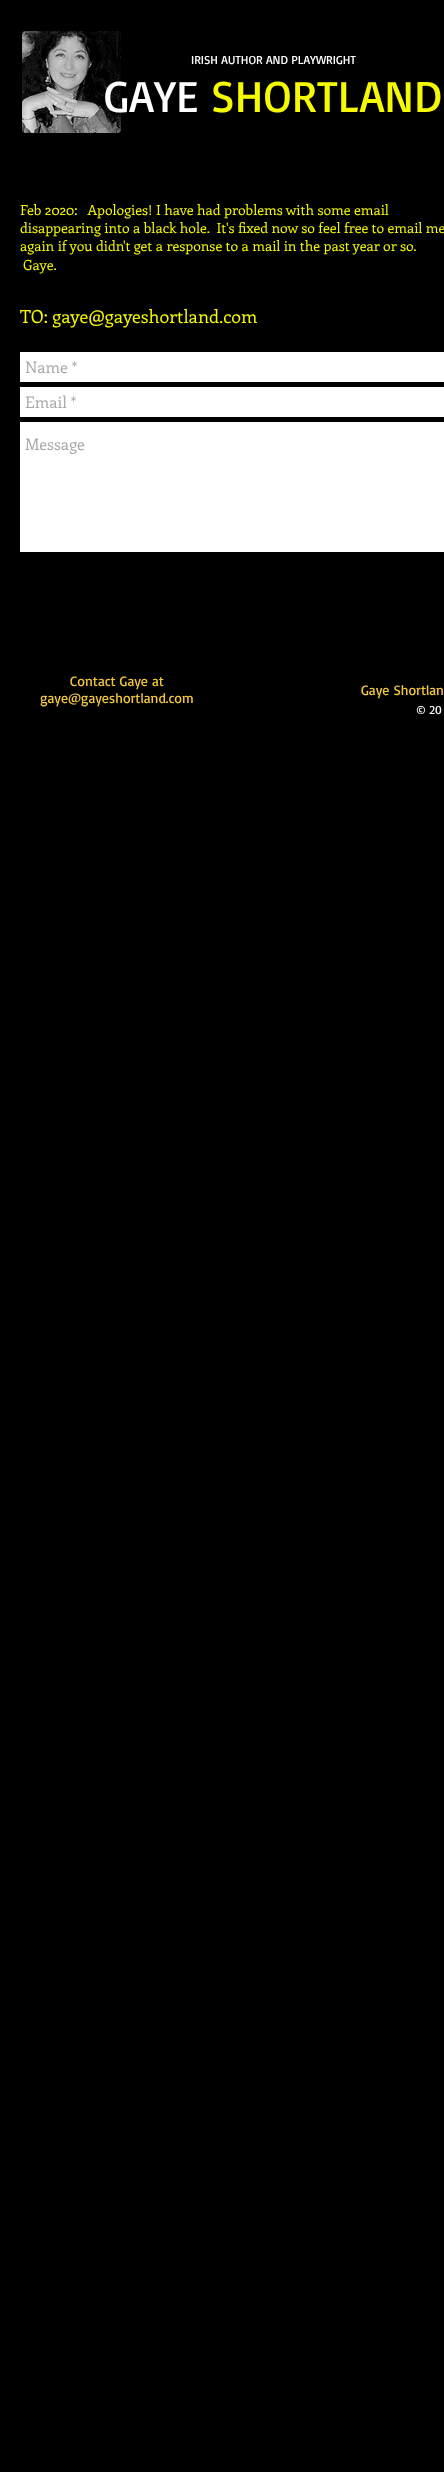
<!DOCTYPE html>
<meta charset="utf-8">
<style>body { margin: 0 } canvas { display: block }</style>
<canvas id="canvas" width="444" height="2472"></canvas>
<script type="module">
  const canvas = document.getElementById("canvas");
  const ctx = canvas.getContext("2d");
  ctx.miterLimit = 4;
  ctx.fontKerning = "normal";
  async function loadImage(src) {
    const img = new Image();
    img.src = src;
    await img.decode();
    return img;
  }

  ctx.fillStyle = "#000000";
  ctx.fillRect(0, 0, 444, 2472);
  ctx.drawImage(await loadImage("img1.png"), 22, 31, 99, 102);
  ctx.font = "12px Basic";
  ctx.fillStyle = "#ffffff";
  ctx.fillText("IRISH AUTHOR AND PLAYWRIGHT", 191, 64);
  ctx.font = "45px Basic";
  ctx.fillText("GAYE", 104, 112);
  ctx.fillStyle = "#f6fa00";
  ctx.fillText("SHORTLAND", 211, 112);
  ctx.font = "14px Enriqueta";
  ctx.fillText("Feb 2020:   Apologies! I have had problems with some email", 20, 215);
  ctx.fillText("disappearing into a black hole.  It's fixed now so feel free to email me", 20, 233);
  ctx.fillText("again if you didn't get a response to a mail in the past year or so.", 20, 251);
  ctx.fillText("Gaye.", 23, 270);
  ctx.font = "18px Enriqueta";
  ctx.fillText("TO: gaye@gayeshortland.com", 20, 323);
  ctx.fillStyle = "#ffffff";
  ctx.fillRect(20, 352, 424, 30);
  ctx.font = "16px Enriqueta";
  ctx.fillStyle = "#a9a9a9";
  ctx.fillText("Name *", 25, 373);
  ctx.fillStyle = "#ffffff";
  ctx.fillRect(20, 387, 424, 30);
  ctx.fillStyle = "#a9a9a9";
  ctx.fillText("Email *", 25, 408);
  ctx.fillStyle = "#ffffff";
  ctx.fillRect(20, 422, 424, 130);
  ctx.fillStyle = "#a9a9a9";
  ctx.fillText("Message", 25, 450);
  ctx.font = "14px Basic";
  ctx.fillStyle = "#f2c73a";
  ctx.fillText("Contact Gaye at", 70, 686);
  ctx.fillText("gaye@gayeshortland.com", 40, 703);
  ctx.fillText("Gaye Shortlan", 361, 695);
  ctx.font = "12px Basic";
  ctx.fillStyle = "#ffffff";
  ctx.fillText("© 20", 416, 714);
</script>
